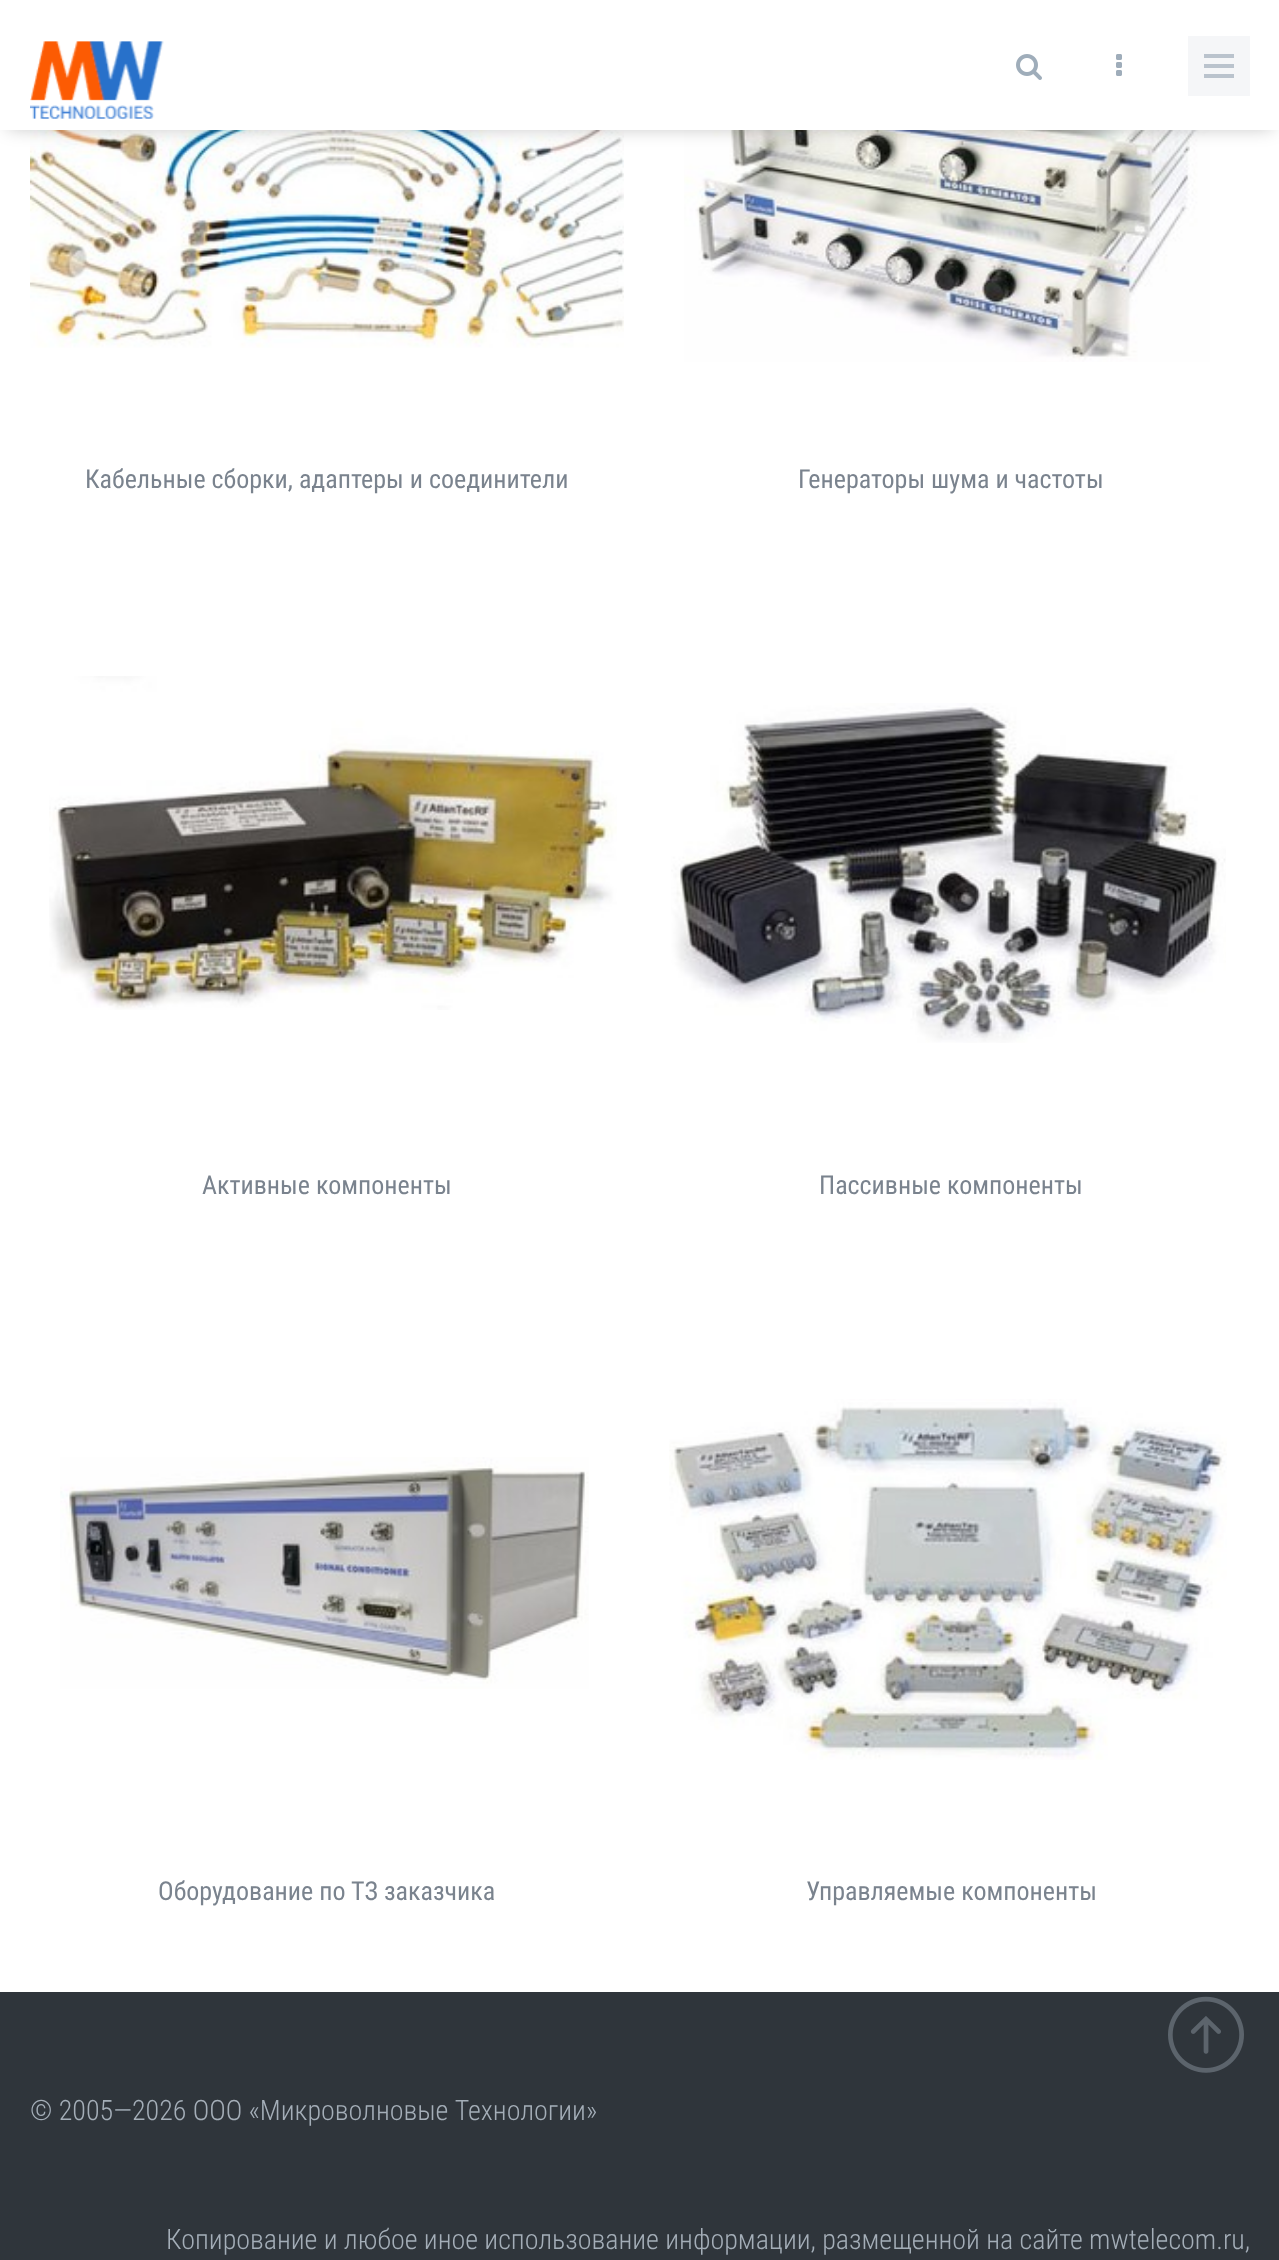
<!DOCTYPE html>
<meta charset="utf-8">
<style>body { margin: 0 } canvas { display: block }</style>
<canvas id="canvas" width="1279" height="2260"></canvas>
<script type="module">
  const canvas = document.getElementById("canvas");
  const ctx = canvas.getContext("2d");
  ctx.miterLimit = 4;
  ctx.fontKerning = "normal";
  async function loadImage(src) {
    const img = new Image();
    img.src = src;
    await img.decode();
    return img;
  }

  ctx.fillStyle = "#ffffff";
  ctx.fillRect(0, 0, 1279, 2260);
  ctx.drawImage(await loadImage("img4.png"), 30, 130, 594, 218);
  ctx.drawImage(await loadImage("img5.png"), 684, 130, 526, 232);
  ctx.fillStyle = "rgba(0, 0, 0, 0.25)";
  ctx.filter = "blur(9px)";
  ctx.beginPath();
  ctx.rect(8, 14, 1264, 114);
  ctx.fill();
  ctx.filter = "none";
  ctx.fillStyle = "#ffffff";
  ctx.fillRect(0, 0, 1279, 130);
  ctx.drawImage(await loadImage("img1.png"), 30, 41, 134, 79);
  ctx.drawImage(await loadImage("img2.png"), 1016, 54, 26, 26);
  ctx.drawImage(await loadImage("img3.png"), 1116, 54, 6, 22);
  ctx.fillStyle = "#f5f6f8";
  ctx.fillRect(1188, 36, 62, 60);
  ctx.fillStyle = "#bac3cd";
  ctx.fillRect(1204, 54, 30, 4);
  ctx.fillRect(1204, 64, 30, 4);
  ctx.fillRect(1204, 74, 30, 4);
  ctx.font = "26px Roboto Condensed";
  ctx.fillStyle = "#7a838e";
  ctx.fillText("Кабельные сборки, адаптеры и соединители", 85, 488);
  ctx.fillText("Генераторы шума и частоты", 798, 488);
  ctx.drawImage(await loadImage("img6.png"), 49, 676, 568, 334);
  ctx.fillText("Активные компоненты", 202, 1194);
  ctx.drawImage(await loadImage("img7.png"), 671, 703, 555, 340);
  ctx.fillText("Пассивные компоненты", 819, 1194);
  ctx.drawImage(await loadImage("img8.png"), 60, 1457, 529, 232);
  ctx.fillText("Оборудование по ТЗ заказчика", 158, 1900);
  ctx.drawImage(await loadImage("img9.png"), 669, 1399, 558, 361);
  ctx.fillText("Управляемые компоненты", 806, 1900);
  ctx.fillStyle = "#2f353b";
  ctx.fillRect(0, 1992, 1279, 268);
  ctx.drawImage(await loadImage("img10.png"), 1168, 1996, 76, 77);
  ctx.font = "300 28px Roboto Condensed";
  ctx.fillStyle = "#a4aeb8";
  ctx.fillText("© 2005—2026 ООО «Микроволновые Технологии»", 30, 2120);
  ctx.fillText("Копирование и любое иное использование информации, размещенной на сайте mwtelecom.ru,", 166, 2249);
</script>
